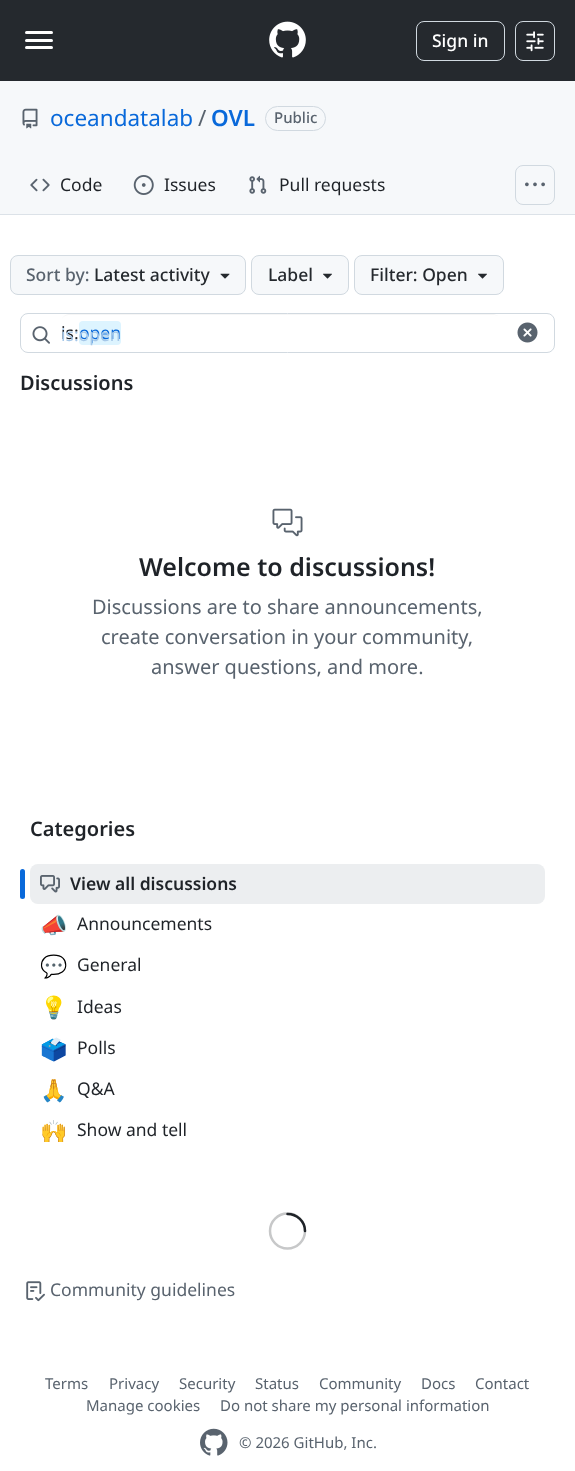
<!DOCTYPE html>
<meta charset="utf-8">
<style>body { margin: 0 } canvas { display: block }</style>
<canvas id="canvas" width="575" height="1471"></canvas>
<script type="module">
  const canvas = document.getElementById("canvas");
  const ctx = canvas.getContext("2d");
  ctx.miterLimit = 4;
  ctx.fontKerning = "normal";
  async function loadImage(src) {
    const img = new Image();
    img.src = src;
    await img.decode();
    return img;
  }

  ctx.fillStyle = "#ffffff";
  ctx.fillRect(0, 0, 575, 1471);
  ctx.fillStyle = "#25292e";
  ctx.fillRect(0, 0, 575, 81);
  ctx.fillStyle = "#ffffff";
  ctx.beginPath();
  ctx.roundRect(25, 31, 28, 3, 1.5);
  ctx.fill();
  ctx.beginPath();
  ctx.roundRect(25, 39, 28, 3, 1.5);
  ctx.fill();
  ctx.beginPath();
  ctx.roundRect(25, 46, 28, 3, 1.5);
  ctx.fill();
  ctx.drawImage(await loadImage("img1.png"), 269, 21, 37, 37);
  ctx.beginPath();
  ctx.roundRect(416.5, 21.5, 88, 39, 7.5);
  ctx.strokeStyle = "#d1d9e0";
  ctx.stroke();
  ctx.font = "500 17.5px Noto Sans";
  ctx.fillText("Sign in", 432, 47);
  ctx.beginPath();
  ctx.roundRect(515.5, 21.5, 39, 39, 7.5);
  ctx.stroke();
  ctx.drawImage(await loadImage("img2.png"), 526, 31, 18, 21);
  ctx.fillStyle = "#f6f8fa";
  ctx.fillRect(0, 81, 575, 133);
  ctx.drawImage(await loadImage("img3.png"), 22, 108, 16, 21);
  ctx.font = "22.5px Noto Sans";
  ctx.fillStyle = "#0969da";
  ctx.fillText("oceandatalab", 50, 126);
  ctx.fillStyle = "#59636e";
  ctx.fillText("/", 198, 126);
  ctx.font = "600 22.5px Noto Sans";
  ctx.fillStyle = "#0969da";
  ctx.fillText("OVL", 211, 126);
  ctx.beginPath();
  ctx.roundRect(265.5, 106.5, 60, 24, 12);
  ctx.stroke();
  ctx.font = "500 15px Noto Sans";
  ctx.fillStyle = "#59636e";
  ctx.fillText("Public", 274, 123);
  ctx.fillStyle = "#dce2e8";
  ctx.fillRect(0, 214, 575, 1);
  ctx.drawImage(await loadImage("img4.png"), 30, 178, 20, 14);
  ctx.font = "17.5px Noto Sans";
  ctx.fillStyle = "#1f2328";
  ctx.fillText("Code", 60, 191);
  ctx.drawImage(await loadImage("img5.png"), 133, 175, 21, 20);
  ctx.fillText("Issues", 164, 191);
  ctx.drawImage(await loadImage("img6.png"), 249, 175, 18, 19);
  ctx.fillText("Pull requests", 279, 191);
  ctx.beginPath();
  ctx.roundRect(515.5, 165.5, 39, 39, 7.5);
  ctx.stroke();
  ctx.drawImage(await loadImage("img7.png"), 525, 182, 20, 5);
  ctx.fillStyle = "#f6f8fa";
  ctx.beginPath();
  ctx.roundRect(10.5, 255.5, 235, 39, 7.5);
  ctx.fill();
  ctx.stroke();
  ctx.font = "500 17.5px Noto Sans";
  ctx.fillStyle = "#59636e";
  ctx.fillText("Sort by:", 26, 281);
  ctx.fillStyle = "#25292e";
  ctx.fillText("Latest activity", 94, 281);
  ctx.drawImage(await loadImage("img8.png"), 220, 273, 10, 6);
  ctx.fillStyle = "#f6f8fa";
  ctx.beginPath();
  ctx.roundRect(251.5, 255.5, 97, 39, 7.5);
  ctx.fill();
  ctx.stroke();
  ctx.fillStyle = "#25292e";
  ctx.fillText("Label", 268, 281);
  ctx.drawImage(await loadImage("img9.png"), 323, 273, 9, 6);
  ctx.fillStyle = "#f6f8fa";
  ctx.beginPath();
  ctx.roundRect(354.5, 255.5, 149, 39, 7.5);
  ctx.fill();
  ctx.stroke();
  ctx.fillStyle = "#25292e";
  ctx.fillText("Filter: Open", 370, 281);
  ctx.drawImage(await loadImage("img9.png"), 478, 273, 9, 6);
  ctx.beginPath();
  ctx.roundRect(20.5, 313.5, 534, 39, 7.5);
  ctx.stroke();
  ctx.drawImage(await loadImage("img10.png"), 32, 326, 18, 18);
  ctx.font = "17.5px Noto Sans";
  ctx.fillStyle = "#1f2328";
  ctx.fillText("is:", 61, 339);
  ctx.fillStyle = "#ddf4ff";
  ctx.beginPath();
  ctx.roundRect(79, 321, 42, 24, 4);
  ctx.fill();
  ctx.fillStyle = "#0969da";
  ctx.fillText("open", 79, 339);
  ctx.fillStyle = "#f6f6f6";
  ctx.beginPath();
  ctx.moveTo(69, 315);
  ctx.lineTo(494, 315);
  ctx.bezierCurveTo(498, 315, 501, 318, 501, 322);
  ctx.bezierCurveTo(501, 318, 497, 314, 493, 314);
  ctx.lineTo(69, 314);
  ctx.bezierCurveTo(65, 314, 61, 318, 61, 322);
  ctx.bezierCurveTo(61, 318, 65, 315, 69, 315);
  ctx.closePath();
  ctx.fill();
  ctx.fillStyle = "#a5c7e8";
  ctx.fillText("is:open", 61, 341);
  ctx.drawImage(await loadImage("img11.png"), 517, 322, 21, 21);
  ctx.font = "600 20px Noto Sans";
  ctx.fillStyle = "#1f2328";
  ctx.fillText("Discussions", 20, 390);
  ctx.drawImage(await loadImage("img12.png"), 272, 508, 31, 29);
  ctx.font = "600 25px Noto Sans";
  ctx.fillText("Welcome to discussions!", 139, 576);
  ctx.font = "20px Noto Sans";
  ctx.fillStyle = "#59636e";
  ctx.fillText("Discussions are to share announcements,", 92, 614);
  ctx.fillText("create conversation in your community,", 101, 644);
  ctx.fillText("answer questions, and more.", 151, 674);
  ctx.font = "600 20px Noto Sans";
  ctx.fillStyle = "#1f2328";
  ctx.fillText("Categories", 30, 836);
  ctx.fillStyle = "#eceef0";
  ctx.beginPath();
  ctx.roundRect(30, 864, 515, 40, 8);
  ctx.fill();
  ctx.fillStyle = "#0969da";
  ctx.beginPath();
  ctx.roundRect(20, 869, 5, 30, 2.5);
  ctx.fill();
  ctx.drawImage(await loadImage("img13.png"), 40, 875, 20, 18);
  ctx.font = "600 17.5px Noto Sans";
  ctx.fillStyle = "#1f2328";
  ctx.fillText("View all discussions", 70, 890);
  ctx.font = "22px Noto Color Emoji";
  ctx.fillStyle = "#59636e";
  ctx.fillText("📣", 40, 933);
  ctx.font = "17.5px Noto Sans";
  ctx.fillStyle = "#1f2328";
  ctx.fillText("Announcements", 77, 930);
  ctx.font = "22px Noto Color Emoji";
  ctx.fillStyle = "#59636e";
  ctx.fillText("💬", 40, 974);
  ctx.font = "17.5px Noto Sans";
  ctx.fillStyle = "#1f2328";
  ctx.fillText("General", 77, 971);
  ctx.font = "22px Noto Color Emoji";
  ctx.fillStyle = "#59636e";
  ctx.fillText("💡", 40, 1015);
  ctx.font = "17.5px Noto Sans";
  ctx.fillStyle = "#1f2328";
  ctx.fillText("Ideas", 77, 1013);
  ctx.font = "22px Noto Color Emoji";
  ctx.fillStyle = "#59636e";
  ctx.fillText("🗳️", 40, 1057);
  ctx.font = "17.5px Noto Sans";
  ctx.fillStyle = "#1f2328";
  ctx.fillText("Polls", 77, 1054);
  ctx.font = "22px Noto Color Emoji";
  ctx.fillStyle = "#59636e";
  ctx.fillText("🙏", 40, 1098);
  ctx.font = "17.5px Noto Sans";
  ctx.fillStyle = "#1f2328";
  ctx.fillText("Q&A", 77, 1095);
  ctx.font = "22px Noto Color Emoji";
  ctx.fillStyle = "#59636e";
  ctx.fillText("🙌", 40, 1139);
  ctx.font = "17.5px Noto Sans";
  ctx.fillStyle = "#1f2328";
  ctx.fillText("Show and tell", 77, 1136);
  ctx.beginPath();
  ctx.arc(287.5, 1231, 17.5, 0, Math.PI * 2);
  ctx.strokeStyle = "#c7c8c9";
  ctx.lineWidth = 2.5;
  ctx.stroke();
  ctx.beginPath();
  ctx.moveTo(305, 1231);
  ctx.bezierCurveTo(305, 1221.5, 297, 1214, 287.5, 1214);
  ctx.strokeStyle = "#1f2328";
  ctx.lineCap = "round";
  ctx.stroke();
  ctx.drawImage(await loadImage("img14.png"), 26, 1281, 19, 21);
  ctx.fillStyle = "#59636e";
  ctx.fillText("Community guidelines", 50, 1296);
  ctx.font = "15px Noto Sans";
  ctx.fillText("Terms", 45, 1389);
  ctx.fillText("Privacy", 109, 1389);
  ctx.fillText("Security", 179, 1389);
  ctx.fillText("Status", 255, 1389);
  ctx.fillText("Community", 319, 1389);
  ctx.fillText("Docs", 421, 1389);
  ctx.fillText("Contact", 475, 1389);
  ctx.fillText("Manage cookies", 86, 1411);
  ctx.fillText("Do not share my personal information", 220, 1411);
  ctx.drawImage(await loadImage("img15.png"), 200, 1428, 28, 28);
  ctx.fillText("© 2026 GitHub, Inc.", 239, 1448);
</script>
